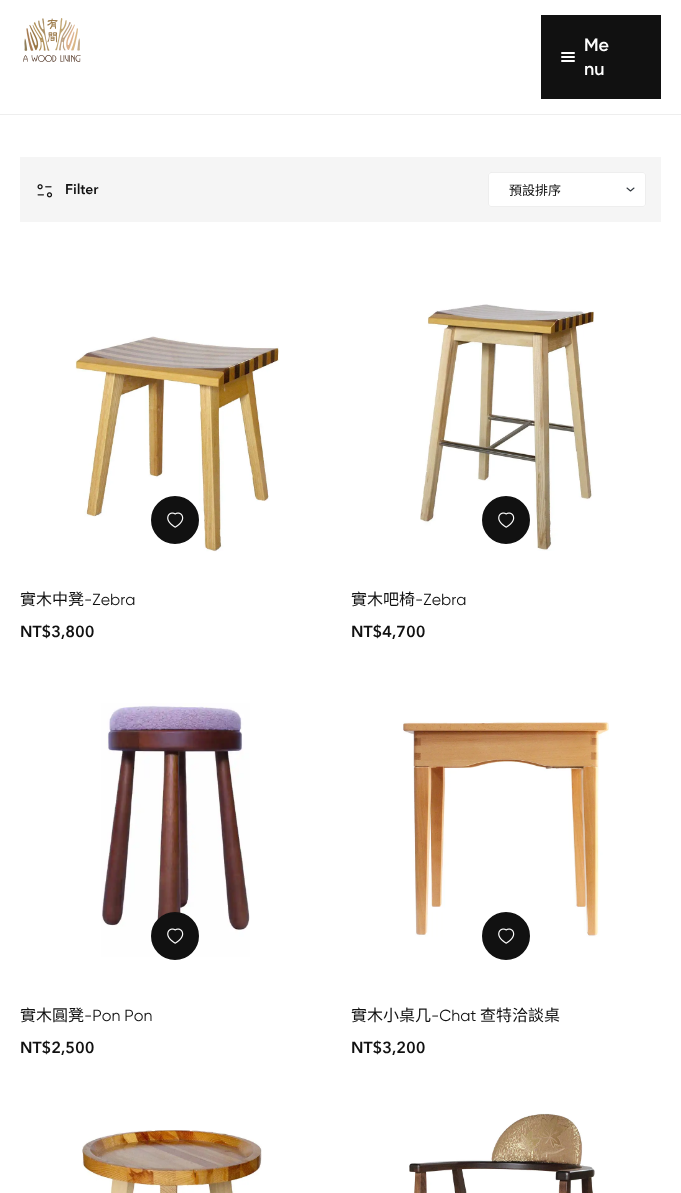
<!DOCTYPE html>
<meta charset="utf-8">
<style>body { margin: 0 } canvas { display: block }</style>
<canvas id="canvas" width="681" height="1193"></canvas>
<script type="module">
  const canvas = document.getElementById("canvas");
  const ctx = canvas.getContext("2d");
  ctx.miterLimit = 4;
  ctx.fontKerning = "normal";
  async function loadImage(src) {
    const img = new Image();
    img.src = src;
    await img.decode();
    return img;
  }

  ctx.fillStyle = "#ffffff";
  ctx.fillRect(0, 0, 681, 1193);
  ctx.fillStyle = "#eeeeee";
  ctx.fillRect(0, 114, 681, 1);
  ctx.drawImage(await loadImage("img1.png"), 23, 18, 58, 44);
  ctx.fillStyle = "#111111";
  ctx.fillRect(541, 15, 120, 84);
  ctx.fillStyle = "#ffffff";
  ctx.beginPath();
  ctx.roundRect(561, 52, 14, 2, 1);
  ctx.fill();
  ctx.font = "600 18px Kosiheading";
  ctx.fillText("Me", 584, 51);
  ctx.beginPath();
  ctx.roundRect(561, 56, 14, 2, 1);
  ctx.fill();
  ctx.fillText("nu", 584, 75);
  ctx.beginPath();
  ctx.roundRect(561, 60, 14, 2, 1);
  ctx.fill();
  ctx.fillStyle = "#f5f5f5";
  ctx.fillRect(20, 157, 641, 65);
  ctx.drawImage(await loadImage("img2.png"), 37, 184, 16, 14);
  ctx.font = "500 14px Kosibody";
  ctx.fillStyle = "#111111";
  ctx.fillText("Filter", 65, 194);
  ctx.fillStyle = "#ffffff";
  ctx.beginPath();
  ctx.roundRect(488, 172, 158, 35, 3);
  ctx.fill();
  ctx.beginPath();
  ctx.moveTo(627, 188);
  ctx.lineTo(630.5, 191);
  ctx.lineTo(634, 188);
  ctx.strokeStyle = "#343a40";
  ctx.lineWidth = 1.1;
  ctx.lineCap = "round";
  ctx.lineJoin = "round";
  ctx.stroke();
  ctx.beginPath();
  ctx.roundRect(488.5, 172.5, 157, 34, 2.5);
  ctx.strokeStyle = "#eeeeee";
  ctx.lineWidth = 1;
  ctx.lineJoin = "miter";
  ctx.stroke();
  ctx.font = "13px Noto Sans CJK TC";
  ctx.fillStyle = "#111111";
  ctx.fillText("預設排序", 509, 195);
  ctx.drawImage(await loadImage("img3.png"), 75, 336, 204, 216);
  ctx.beginPath();
  ctx.arc(175, 520, 23, 0, Math.PI * 2);
  ctx.fill();
  ctx.strokeStyle = "#111111";
  ctx.lineWidth = 2;
  ctx.stroke();
  ctx.drawImage(await loadImage("img4.png"), 167, 512, 17, 16);
  ctx.font = "16px Noto Sans CJK TC";
  ctx.fillText("實木中凳", 20, 605);
  ctx.font = "16px Kosiheading";
  ctx.fillText("-Zebra", 84, 605);
  ctx.font = "500 16px Kosibody";
  ctx.fillText("NT$3,800", 20, 637);
  ctx.drawImage(await loadImage("img5.png"), 420, 304, 174, 247);
  ctx.beginPath();
  ctx.arc(506, 520, 23, 0, Math.PI * 2);
  ctx.fill();
  ctx.stroke();
  ctx.drawImage(await loadImage("img4.png"), 498, 512, 17, 16);
  ctx.font = "16px Noto Sans CJK TC";
  ctx.fillText("實木吧椅", 351, 605);
  ctx.font = "16px Kosiheading";
  ctx.fillText("-Zebra", 415, 605);
  ctx.font = "500 16px Kosibody";
  ctx.fillText("NT$4,700", 351, 637);
  ctx.drawImage(await loadImage("img6.png"), 101, 703, 149, 254);
  ctx.beginPath();
  ctx.arc(175, 936, 23, 0, Math.PI * 2);
  ctx.fill();
  ctx.stroke();
  ctx.drawImage(await loadImage("img4.png"), 167, 928, 17, 16);
  ctx.font = "16px Noto Sans CJK TC";
  ctx.fillText("實木圓凳", 20, 1021);
  ctx.font = "16px Kosiheading";
  ctx.fillText("-Pon Pon", 84, 1021);
  ctx.font = "500 16px Kosibody";
  ctx.fillText("NT$2,500", 20, 1053);
  ctx.drawImage(await loadImage("img7.png"), 403, 721, 206, 216);
  ctx.beginPath();
  ctx.arc(506, 936, 23, 0, Math.PI * 2);
  ctx.fill();
  ctx.stroke();
  ctx.drawImage(await loadImage("img4.png"), 498, 928, 17, 16);
  ctx.font = "16px Noto Sans CJK TC";
  ctx.fillText("實木小桌几", 351, 1021);
  ctx.font = "16px Kosiheading";
  ctx.fillText("-Chat", 431, 1021);
  ctx.font = "16px Noto Sans CJK TC";
  ctx.fillText("查特洽談桌", 480, 1021);
  ctx.font = "500 16px Kosibody";
  ctx.fillText("NT$3,200", 351, 1053);
  ctx.drawImage(await loadImage("img8.png"), 82, 1130, 180, 63);
  ctx.drawImage(await loadImage("img9.png"), 409, 1113, 186, 80);
</script>
